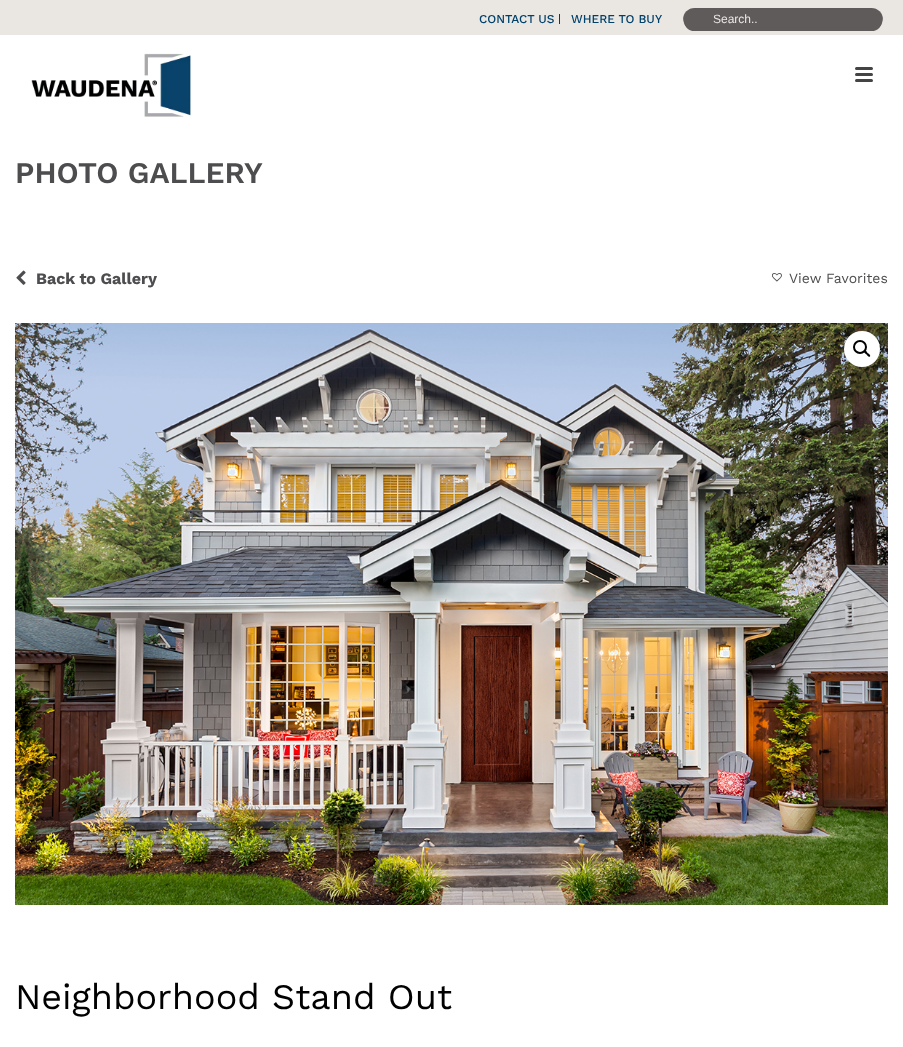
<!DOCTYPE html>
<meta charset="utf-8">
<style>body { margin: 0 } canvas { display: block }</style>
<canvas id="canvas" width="903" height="1047"></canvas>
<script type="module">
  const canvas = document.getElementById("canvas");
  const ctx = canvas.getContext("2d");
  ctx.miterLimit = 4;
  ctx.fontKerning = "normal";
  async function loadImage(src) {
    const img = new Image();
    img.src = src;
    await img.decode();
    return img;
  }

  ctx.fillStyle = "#ffffff";
  ctx.fillRect(0, 0, 903, 1047);
  ctx.fillStyle = "#eae7e3";
  ctx.fillRect(0, 0, 903, 35);
  ctx.fillStyle = "#00416b";
  ctx.fillRect(559, 14, 1, 10);
  ctx.font = "500 12px Work Sans";
  ctx.fillText("CONTACT US", 479, 23);
  ctx.fillText("WHERE TO BUY", 571, 23);
  ctx.save();
  ctx.beginPath();
  ctx.roundRect(683, 0, 200, 35, 17.5);
  ctx.clip();
  ctx.fillStyle = "#5f5b5b";
  ctx.beginPath();
  ctx.roundRect(683, 8, 200, 23, 11.5);
  ctx.fill();
  ctx.restore();
  ctx.font = "12px Liberation Sans";
  ctx.fillStyle = "#eae7e3";
  ctx.fillText("Search..", 713, 23);
  ctx.drawImage(await loadImage("img1.png"), 31, 53, 160, 64);
  ctx.fillStyle = "#444444";
  ctx.beginPath();
  ctx.roundRect(855, 67, 18, 3, 1.5);
  ctx.fill();
  ctx.beginPath();
  ctx.roundRect(855, 73, 18, 3, 1.5);
  ctx.fill();
  ctx.beginPath();
  ctx.roundRect(855, 79, 18, 3, 1.5);
  ctx.fill();
  ctx.font = "600 30px Work Sans";
  ctx.fillStyle = "#4d4d4f";
  ctx.fillText("PHOTO GALLERY", 15, 183);
  ctx.drawImage(await loadImage("img2.png"), 16, 270, 10, 15);
  ctx.font = "bold 16px Work Sans";
  ctx.fillText("Back to Gallery", 36, 284);
  ctx.drawImage(await loadImage("img3.png"), 771, 273, 11, 9);
  ctx.font = "14px Work Sans";
  ctx.fillText("View Favorites", 789, 283);
  ctx.drawImage(await loadImage("img4.png"), 15, 323, 873, 582);
  ctx.fillStyle = "#ffffff";
  ctx.beginPath();
  ctx.arc(862, 349, 18, 0, Math.PI * 2);
  ctx.fill();
  ctx.beginPath();
  ctx.arc(860, 347, 6, 0, Math.PI * 2);
  ctx.strokeStyle = "#000000";
  ctx.lineWidth = 2;
  ctx.stroke();
  ctx.fillStyle = "#000000";
  ctx.beginPath();
  ctx.moveTo(864, 350.5);
  ctx.bezierCurveTo(865.5, 349.5, 867, 352, 867.5, 353);
  ctx.bezierCurveTo(868.5, 353.5, 871, 355, 870, 356.5);
  ctx.bezierCurveTo(868.5, 357.5, 867, 355, 866.5, 354.5);
  ctx.bezierCurveTo(865.5, 353.5, 863, 352, 864, 350.5);
  ctx.closePath();
  ctx.fill();
  ctx.font = "36px Work Sans";
  ctx.fillText("Neighborhood Stand Out", 15, 1009);
</script>
